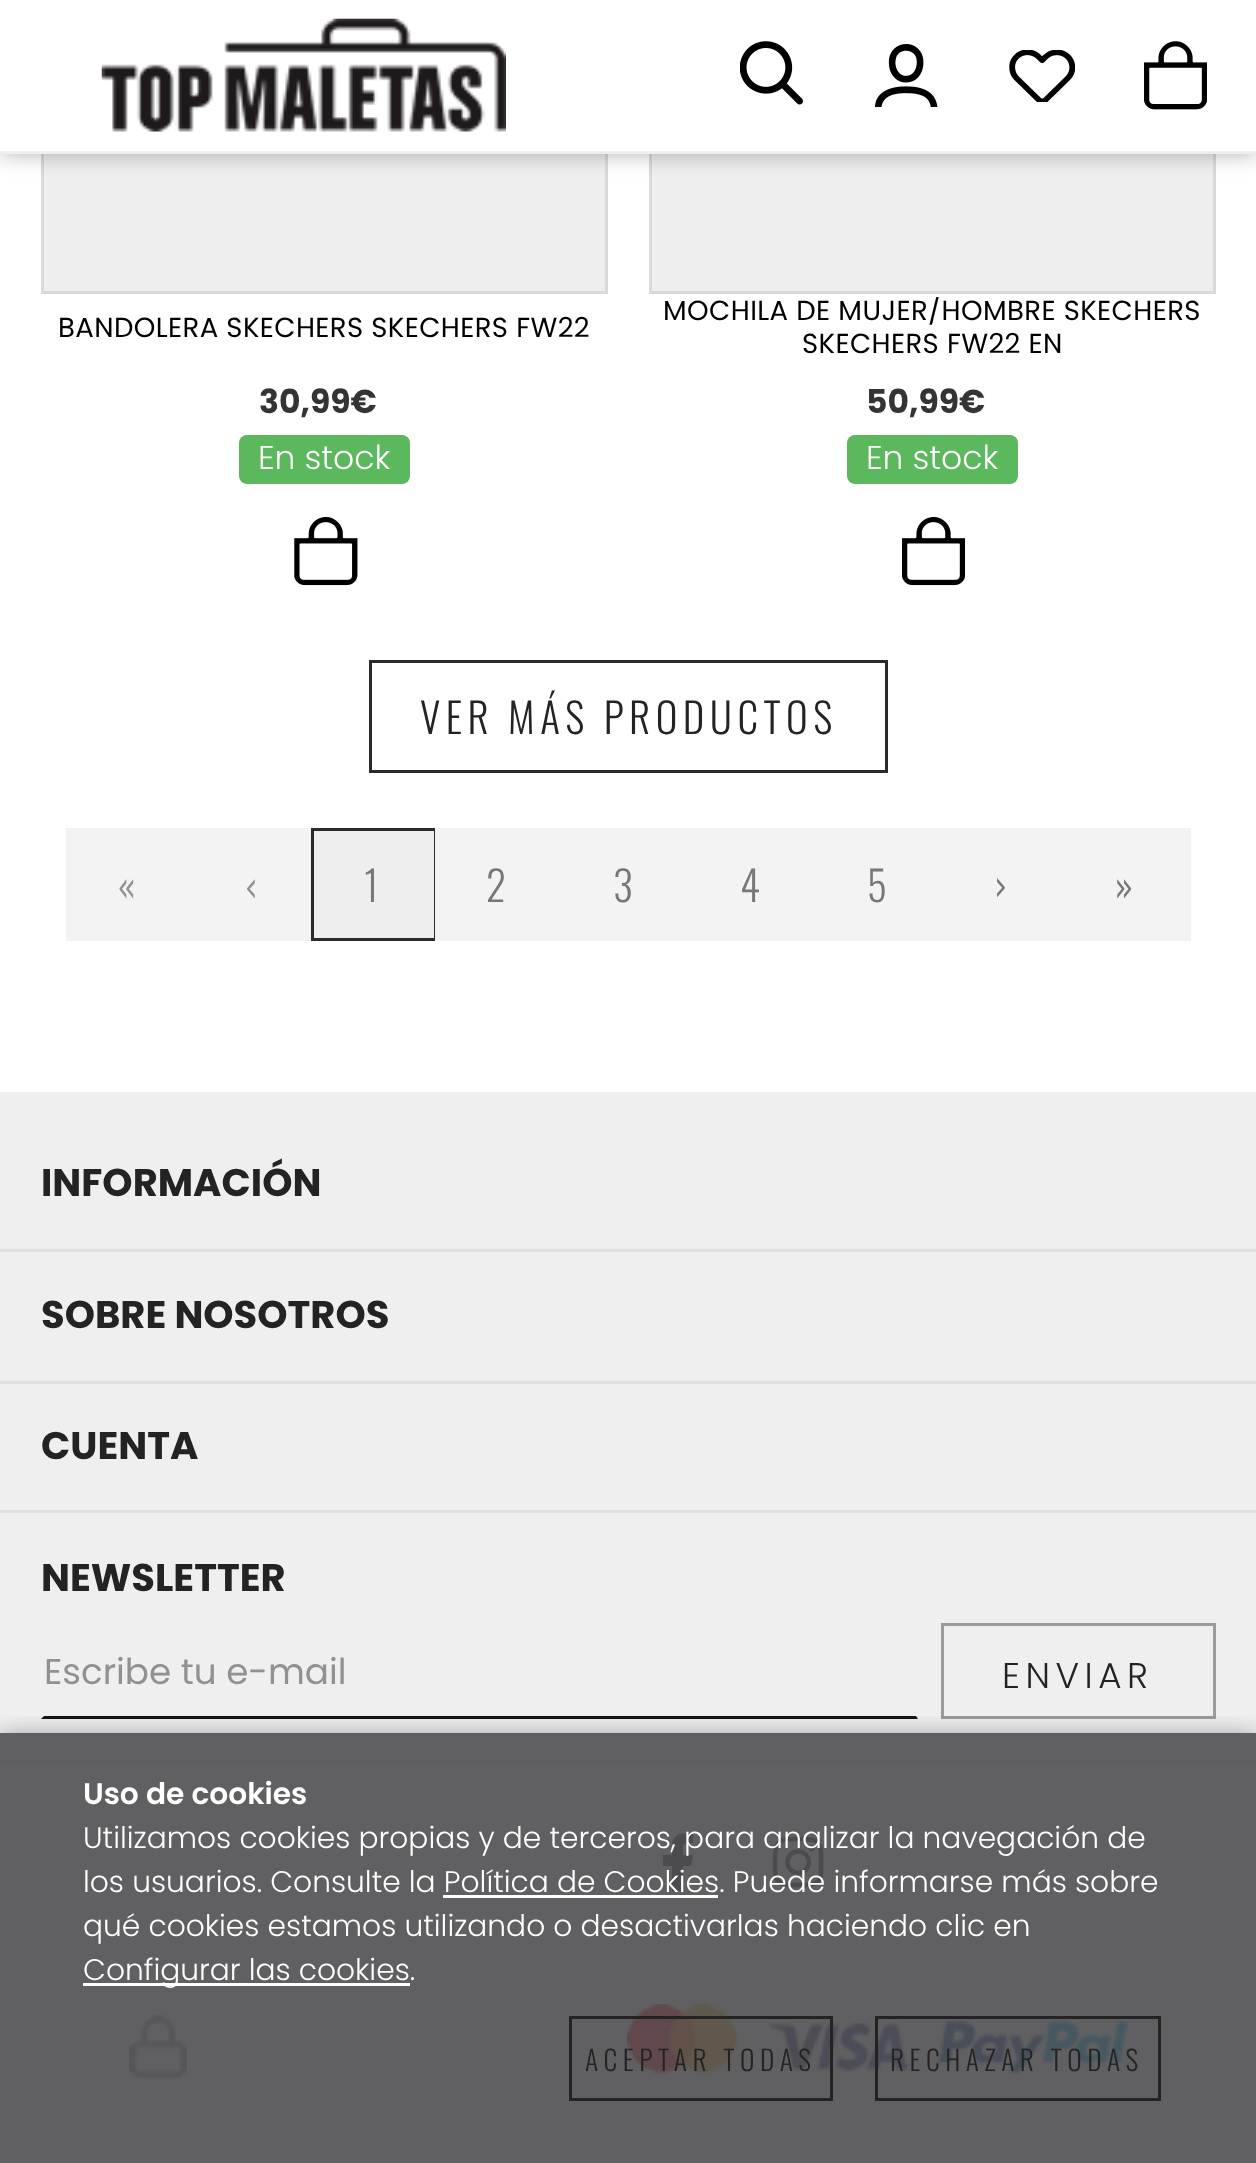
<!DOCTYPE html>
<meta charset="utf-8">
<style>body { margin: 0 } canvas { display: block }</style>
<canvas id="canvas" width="1256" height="2163"></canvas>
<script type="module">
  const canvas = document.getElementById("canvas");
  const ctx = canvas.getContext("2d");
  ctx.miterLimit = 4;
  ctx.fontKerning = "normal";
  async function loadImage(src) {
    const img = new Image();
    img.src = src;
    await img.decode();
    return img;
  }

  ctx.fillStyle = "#ffffff";
  ctx.fillRect(0, 0, 1256, 2163);
  ctx.fillStyle = "#eeeeee";
  ctx.fillRect(44, 154, 561, 137);
  ctx.strokeStyle = "#dadada";
  ctx.lineWidth = 3;
  ctx.strokeRect(42.5, -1.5, 564, 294);
  ctx.fillRect(652, 154, 561, 137);
  ctx.strokeRect(650.5, -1.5, 564, 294);
  ctx.fillStyle = "rgba(0, 0, 0, 0.3)";
  ctx.filter = "blur(11px)";
  ctx.beginPath();
  ctx.rect(0, 0, 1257, 154);
  ctx.fill();
  ctx.filter = "none";
  ctx.fillStyle = "#ffffff";
  ctx.fillRect(0, 0, 1256, 151);
  ctx.fillStyle = "#eeeeee";
  ctx.fillRect(0, 151, 1256, 3);
  ctx.drawImage(await loadImage("img1.png"), 101, 18, 405, 114);
  ctx.drawImage(await loadImage("img2.png"), 740, 41, 63, 64);
  ctx.drawImage(await loadImage("img3.png"), 875, 44, 63, 63);
  ctx.drawImage(await loadImage("img4.png"), 1009, 50, 66, 52);
  ctx.drawImage(await loadImage("img5.png"), 1144, 41, 63, 69);
  ctx.letterSpacing = "0.4px";
  ctx.font = "27.5px Poppins";
  ctx.fillStyle = "#000000";
  ctx.fillText("BANDOLERA SKECHERS SKECHERS FW22", 58, 337);
  ctx.letterSpacing = "0px";
  ctx.font = "bold 33px Poppins";
  ctx.fillStyle = "#343434";
  ctx.fillText("30,99€", 259, 413);
  ctx.fillStyle = "#5cb85c";
  ctx.beginPath();
  ctx.roundRect(239, 435, 171, 49, 8);
  ctx.fill();
  ctx.font = "300 33px Poppins";
  ctx.fillStyle = "#ffffff";
  ctx.fillText("En stock", 258, 469);
  ctx.drawImage(await loadImage("img6.png"), 294, 517, 64, 69);
  ctx.save();
  ctx.beginPath();
  ctx.rect(649, 297, 567, 66);
  ctx.clip();
  ctx.letterSpacing = "0.4px";
  ctx.font = "27.5px Poppins";
  ctx.fillStyle = "#000000";
  ctx.fillText("MOCHILA DE MUJER/HOMBRE SKECHERS", 663, 320);
  ctx.restore();
  ctx.letterSpacing = "0.4px";
  ctx.font = "27.5px Poppins";
  ctx.fillStyle = "#000000";
  ctx.fillText("SKECHERS FW22 EN", 802, 353);
  ctx.letterSpacing = "0px";
  ctx.font = "bold 33px Poppins";
  ctx.fillStyle = "#343434";
  ctx.fillText("50,99€", 866, 413);
  ctx.fillStyle = "#5cb85c";
  ctx.beginPath();
  ctx.roundRect(847, 435, 171, 49, 8);
  ctx.fill();
  ctx.font = "300 33px Poppins";
  ctx.fillStyle = "#ffffff";
  ctx.fillText("En stock", 866, 469);
  ctx.drawImage(await loadImage("img7.png"), 902, 517, 63, 69);
  ctx.strokeStyle = "#2c2926";
  ctx.strokeRect(370.5, 661.5, 516, 110);
  ctx.letterSpacing = "5.5px";
  ctx.font = "300 41.25px Oswald";
  ctx.fillStyle = "#232323";
  ctx.fillText("VER MÁS PRODUCTOS", 420, 734);
  ctx.fillStyle = "#f3f3f3";
  ctx.fillRect(66, 828, 245, 113);
  ctx.fillStyle = "#919191";
  ctx.fillText("«", 118, 902);
  ctx.fillText("‹", 243, 902);
  ctx.fillStyle = "#eeeeee";
  ctx.beginPath();
  ctx.rect(312.5, 829.5, 123, 110);
  ctx.fill();
  ctx.stroke();
  ctx.fillStyle = "#777777";
  ctx.fillText("1", 364, 902);
  ctx.fillStyle = "#f3f3f3";
  ctx.fillRect(435, 828, 756, 113);
  ctx.fillStyle = "#777777";
  ctx.fillText("2", 486, 902);
  ctx.fillText("3", 613, 902);
  ctx.fillText("4", 740, 902);
  ctx.fillText("5", 867, 902);
  ctx.fillText("›", 994, 902);
  ctx.fillText("»", 1115, 902);
  ctx.fillStyle = "#efefef";
  ctx.fillRect(0, 1092, 1256, 641);
  ctx.fillStyle = "#606062";
  ctx.fillRect(0, 1733, 1256, 27);
  ctx.fillStyle = "#dfdfdf";
  ctx.fillRect(0, 1249, 1256, 3);
  ctx.letterSpacing = "0px";
  ctx.font = "bold 38.5px Poppins";
  ctx.fillStyle = "#232323";
  ctx.fillText("INFORMACIÓN", 41, 1196);
  ctx.fillStyle = "#dfdfdf";
  ctx.fillRect(0, 1381, 1256, 3);
  ctx.fillStyle = "#232323";
  ctx.fillText("SOBRE NOSOTROS", 41, 1328);
  ctx.fillStyle = "#dfdfdf";
  ctx.fillRect(0, 1510, 1256, 3);
  ctx.fillStyle = "#232323";
  ctx.fillText("CUENTA", 41, 1459);
  ctx.fillText("NEWSLETTER", 41, 1591);
  ctx.fillStyle = "#151515";
  ctx.beginPath();
  ctx.moveTo(918, 1719);
  ctx.lineTo(41, 1719);
  ctx.lineTo(44, 1716);
  ctx.lineTo(916, 1716);
  ctx.closePath();
  ctx.fill();
  ctx.font = "35.75px Poppins";
  ctx.fillStyle = "#919191";
  ctx.fillText("Escribe tu e-mail", 44, 1684);
  ctx.strokeStyle = "#9b9b9b";
  ctx.strokeRect(942.5, 1624.5, 272, 93);
  ctx.letterSpacing = "5.5px";
  ctx.font = "300 35.75px Poppins";
  ctx.fillStyle = "#232323";
  ctx.fillText("ENVIAR", 1002, 1688);
  ctx.fillStyle = "#606062";
  ctx.fillRect(0, 1763, 1256, 400);
  ctx.fillStyle = "#5e5e60";
  ctx.fillRect(0, 1760, 1256, 3);
  ctx.fillStyle = "#4c4c4e";
  ctx.beginPath();
  ctx.moveTo(691, 1866);
  ctx.lineTo(683, 1866);
  ctx.lineTo(683, 1891);
  ctx.lineTo(672, 1891);
  ctx.lineTo(672, 1866);
  ctx.lineTo(663, 1866);
  ctx.lineTo(663, 1855);
  ctx.lineTo(672, 1855);
  ctx.lineTo(672, 1844);
  ctx.bezierCurveTo(674, 1832, 684, 1833, 693, 1834);
  ctx.lineTo(693, 1843);
  ctx.bezierCurveTo(682, 1843, 683, 1844, 683, 1855);
  ctx.lineTo(693, 1855);
  ctx.closePath();
  ctx.fill();
  ctx.drawImage(await loadImage("img8.png"), 772, 1836, 52, 52);
  ctx.drawImage(await loadImage("img9.png"), 129, 2015, 58, 64);
  ctx.drawImage(await loadImage("img10.png"), 627, 2004, 501, 83);
  ctx.save();
  ctx.beginPath();
  ctx.rect(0, 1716, 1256, 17);
  ctx.clip();
  ctx.fillStyle = "rgba(0, 0, 0, 0.3)";
  ctx.filter = "blur(11px)";
  ctx.beginPath();
  ctx.rect(0, 1733, 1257, 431);
  ctx.fill();
  ctx.filter = "none";
  ctx.restore();
  ctx.letterSpacing = "0px";
  ctx.font = "600 29.7px Poppins";
  ctx.fillStyle = "#ffffff";
  ctx.fillText("Uso de cookies", 83, 1804);
  ctx.font = "300 29.7px Poppins";
  ctx.fillText("Utilizamos cookies propias y de terceros, para analizar la navegación de", 83, 1848);
  ctx.fillText("los usuarios. Consulte la Política de Cookies. Puede informarse más sobre", 83, 1892);
  ctx.fillRect(443, 1895, 275, 3);
  ctx.fillText("qué cookies estamos utilizando o desactivarlas haciendo clic en", 83, 1936);
  ctx.fillRect(83, 1983, 327, 3);
  ctx.fillText("Configurar las cookies.", 83, 1980);
  ctx.strokeStyle = "#232323";
  ctx.strokeRect(570.5, 2017.5, 261, 82);
  ctx.letterSpacing = "5.5px";
  ctx.font = "300 27.5px Oswald";
  ctx.fillStyle = "#232323";
  ctx.fillText("ACEPTAR TODAS", 585, 2071);
  ctx.strokeRect(876.5, 2017.5, 283, 82);
  ctx.fillText("RECHAZAR TODAS", 890, 2071);
</script>
